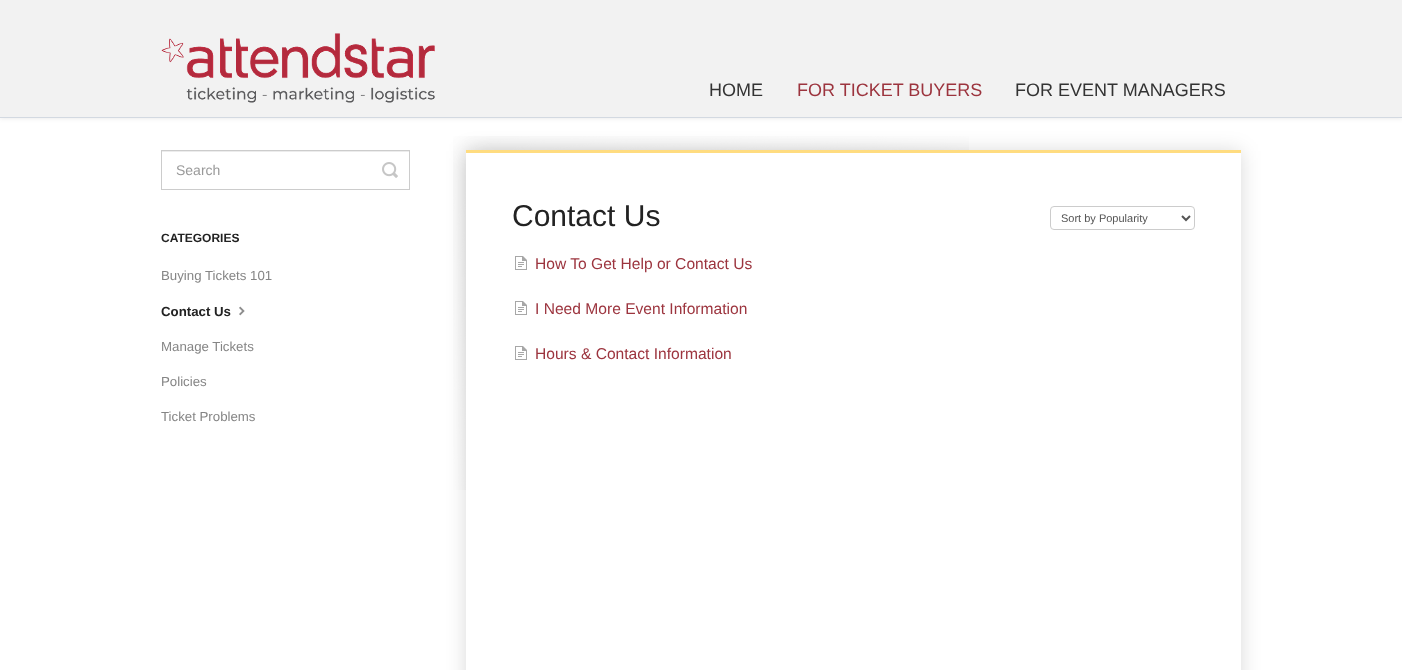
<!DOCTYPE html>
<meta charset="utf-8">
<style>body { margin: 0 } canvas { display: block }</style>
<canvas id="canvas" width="1402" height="670"></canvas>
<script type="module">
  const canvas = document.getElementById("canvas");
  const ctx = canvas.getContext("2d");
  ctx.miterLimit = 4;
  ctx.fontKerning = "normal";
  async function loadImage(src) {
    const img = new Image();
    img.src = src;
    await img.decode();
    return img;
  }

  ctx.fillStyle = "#ffffff";
  ctx.fillRect(0, 0, 1402, 670);
  ctx.fillStyle = "rgba(0, 0, 0, 0.07)";
  ctx.filter = "blur(2px)";
  ctx.beginPath();
  ctx.rect(0, 1, 1402, 118);
  ctx.fill();
  ctx.filter = "none";
  ctx.fillStyle = "#f2f2f2";
  ctx.fillRect(0, 0, 1402, 117);
  ctx.fillStyle = "#d3d9e1";
  ctx.fillRect(0, 117, 1402, 1);
  ctx.drawImage(await loadImage("img1.png"), 161, 33, 274, 70);
  ctx.font = "18px Liberation Sans";
  ctx.fillStyle = "#333333";
  ctx.fillText("HOME", 709, 96);
  ctx.fillStyle = "#9c343e";
  ctx.fillText("FOR TICKET BUYERS", 797, 96);
  ctx.fillStyle = "#333333";
  ctx.fillText("FOR EVENT MANAGERS", 1015, 96);
  ctx.fillStyle = "#ececec";
  ctx.fillRect(162, 151, 247, 1);
  ctx.strokeStyle = "#cccccc";
  ctx.strokeRect(161.5, 150.5, 248, 39);
  ctx.font = "14px Liberation Sans";
  ctx.fillStyle = "#999999";
  ctx.fillText("Search", 176, 175);
  ctx.drawImage(await loadImage("img2.png"), 382, 162, 16, 16);
  ctx.font = "bold 12px Liberation Sans";
  ctx.fillStyle = "#222222";
  ctx.fillText("CATEGORIES", 161, 242);
  ctx.font = "13.25px Liberation Sans";
  ctx.fillStyle = "#858585";
  ctx.fillText("Buying Tickets 101", 161, 280);
  ctx.font = "bold 13.25px Liberation Sans";
  ctx.fillStyle = "#222222";
  ctx.fillText("Contact Us", 161, 316);
  ctx.drawImage(await loadImage("img3.png"), 239, 306, 6, 10);
  ctx.font = "13.25px Liberation Sans";
  ctx.fillStyle = "#858585";
  ctx.fillText("Manage Tickets", 161, 351);
  ctx.fillText("Policies", 161, 386);
  ctx.fillText("Ticket Problems", 161, 421);
  ctx.drawImage(await loadImage("img4.png"), 453, 136, 516, 354);
  ctx.save();
  ctx.beginPath();
  ctx.moveTo(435, 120);
  ctx.lineTo(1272, 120);
  ctx.lineTo(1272, 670);
  ctx.lineTo(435, 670);
  ctx.closePath();
  ctx.moveTo(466, 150);
  ctx.lineTo(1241, 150);
  ctx.lineTo(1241, 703);
  ctx.lineTo(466, 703);
  ctx.closePath();
  ctx.clip("evenodd");
  ctx.fillStyle = "rgba(0, 0, 0, 0.15)";
  ctx.filter = "blur(10px)";
  ctx.beginPath();
  ctx.rect(466, 151, 775, 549);
  ctx.fill();
  ctx.filter = "none";
  ctx.restore();
  ctx.fillStyle = "#ffdc80";
  ctx.fillRect(466, 150, 775, 3);
  ctx.font = "30px Liberation Sans";
  ctx.fillStyle = "#222222";
  ctx.fillText("Contact Us", 512, 226);
  ctx.beginPath();
  ctx.roundRect(1050.5, 206.5, 144, 23, 3.5);
  ctx.stroke();
  ctx.beginPath();
  ctx.moveTo(1182, 216);
  ctx.lineTo(1186, 220);
  ctx.lineTo(1190, 216);
  ctx.strokeStyle = "#555555";
  ctx.lineWidth = 2;
  ctx.stroke();
  ctx.font = "11px Liberation Sans";
  ctx.fillStyle = "#555555";
  ctx.fillText("Sort by Popularity", 1061, 222);
  ctx.drawImage(await loadImage("img5.png"), 515, 256, 12, 14);
  ctx.font = "15.6px Liberation Sans";
  ctx.fillStyle = "#9c343e";
  ctx.fillText("How To Get Help or Contact Us", 535, 269);
  ctx.drawImage(await loadImage("img5.png"), 515, 301, 12, 14);
  ctx.fillText("I Need More Event Information", 535, 314);
  ctx.drawImage(await loadImage("img5.png"), 515, 346, 12, 14);
  ctx.fillText("Hours & Contact Information", 535, 359);
</script>
